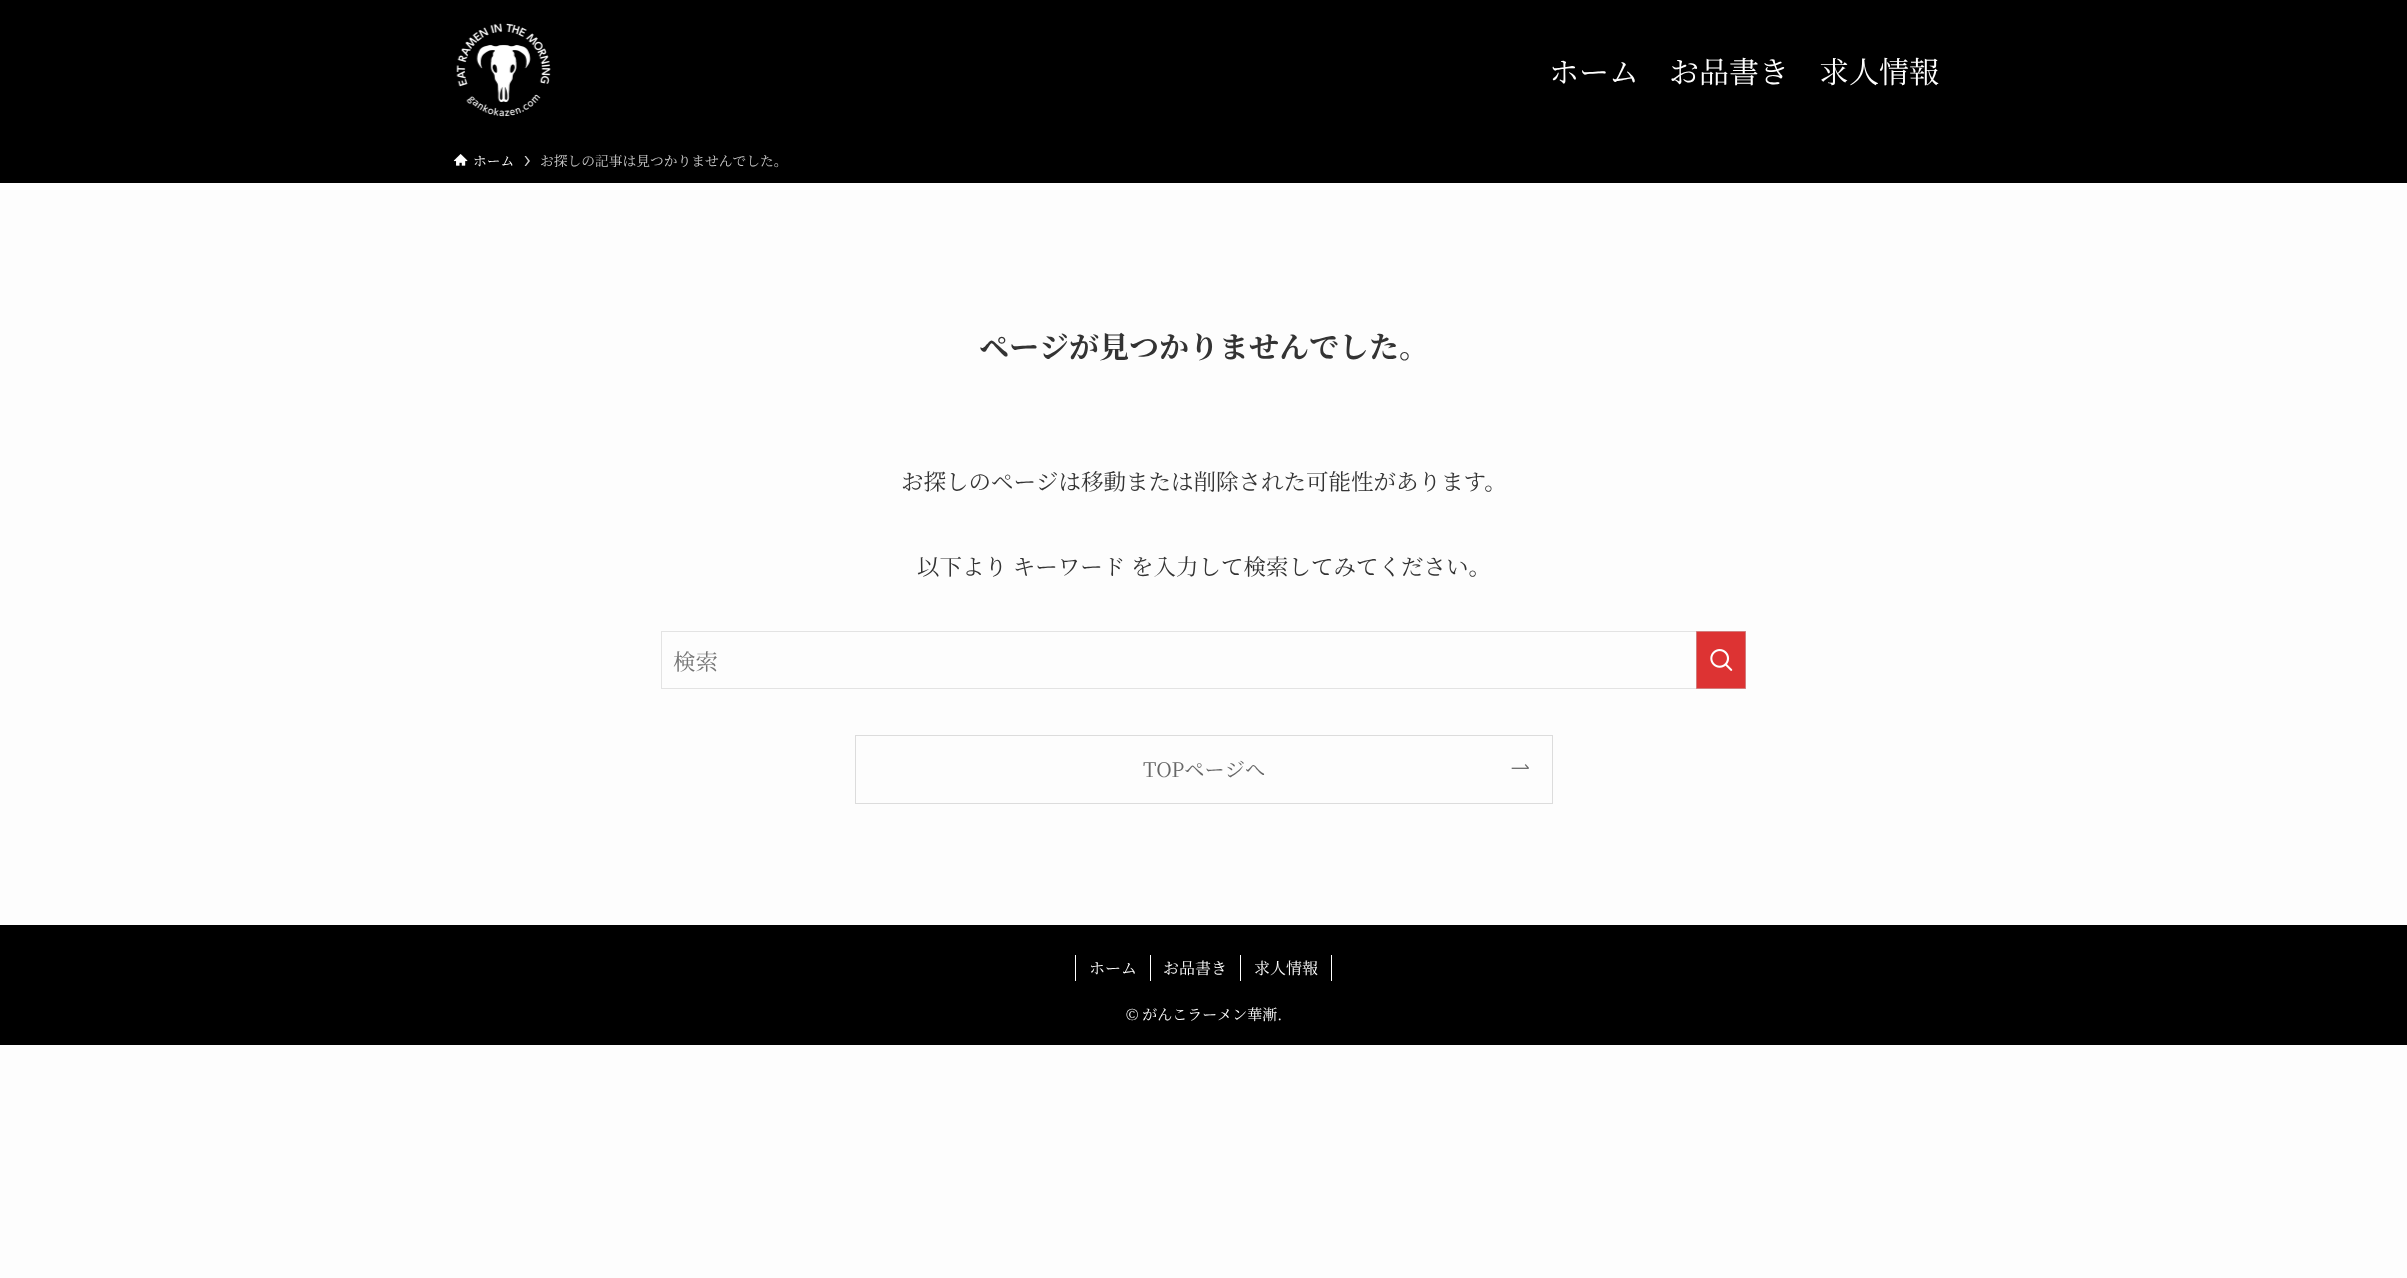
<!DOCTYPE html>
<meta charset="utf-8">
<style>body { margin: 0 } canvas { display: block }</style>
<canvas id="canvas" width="2407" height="1278"></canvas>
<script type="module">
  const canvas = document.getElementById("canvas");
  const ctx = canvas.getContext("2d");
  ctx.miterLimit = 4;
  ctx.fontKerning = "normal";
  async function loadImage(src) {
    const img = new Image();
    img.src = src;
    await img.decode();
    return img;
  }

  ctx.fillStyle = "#fdfdfd";
  ctx.fillRect(0, 0, 2407, 1278);
  ctx.fillStyle = "#000000";
  ctx.fillRect(0, 0, 2407, 183);
  ctx.drawImage(await loadImage("img1.png"), 456, 23, 95, 94);
  ctx.font = "30px Noto Serif JP";
  ctx.fillStyle = "#ffffff";
  ctx.fillText("ホーム", 1549, 83);
  ctx.fillText("お品書き", 1669, 83);
  ctx.fillText("求人情報", 1819, 83);
  ctx.drawImage(await loadImage("img2.png"), 453, 154, 15, 12);
  ctx.font = "13.75px Noto Serif JP";
  ctx.fillText("ホーム", 473, 166);
  ctx.fillStyle = "#cccccc";
  ctx.beginPath();
  ctx.moveTo(526, 156);
  ctx.lineTo(524.5, 156);
  ctx.lineTo(528, 161);
  ctx.lineTo(524.5, 166);
  ctx.lineTo(526, 166);
  ctx.lineTo(530, 161);
  ctx.closePath();
  ctx.fill();
  ctx.fillText("お探しの記事は見つかりませんでした。", 540, 166);
  ctx.font = "bold 30px Noto Serif JP";
  ctx.fillStyle = "#333333";
  ctx.fillText("ページが見つかりませんでした。", 979, 358);
  ctx.font = "22.5px Noto Serif JP";
  ctx.fillText("お探しのページは移動または削除された可能性があります。", 901, 490);
  ctx.fillText("以下より キーワード を入力して検索してみてください。", 917, 575);
  ctx.strokeStyle = "#e3e3e3";
  ctx.strokeRect(661.5, 631.5, 1084, 57);
  ctx.fillStyle = "#757575";
  ctx.fillText("検索", 673, 670);
  ctx.fillStyle = "#dd3333";
  ctx.beginPath();
  ctx.rect(1696.5, 631.5, 49, 57);
  ctx.fill();
  ctx.strokeStyle = "#d27d7d";
  ctx.stroke();
  ctx.drawImage(await loadImage("img3.png"), 1710, 649, 23, 22);
  ctx.strokeStyle = "#dcdcdc";
  ctx.strokeRect(855.5, 735.5, 697, 68);
  ctx.font = "20.25px Noto Serif JP";
  ctx.fillStyle = "#666666";
  ctx.fillText("TOPページへ", 1143, 777);
  ctx.drawImage(await loadImage("img4.png"), 1511, 764, 18, 5);
  ctx.fillStyle = "#000000";
  ctx.fillRect(0, 925, 2407, 120);
  ctx.fillStyle = "#ffffff";
  ctx.fillRect(1150, 955, 1, 26);
  ctx.fillRect(1075, 955, 1, 26);
  ctx.font = "16px Noto Serif JP";
  ctx.fillText("ホーム", 1089, 974);
  ctx.fillRect(1240, 955, 1, 26);
  ctx.fillText("お品書き", 1163, 974);
  ctx.fillRect(1331, 955, 1, 26);
  ctx.fillText("求人情報", 1254, 974);
  ctx.font = "15px Noto Serif JP";
  ctx.fillText("© がんこラーメン華漸.", 1126, 1020);
</script>
